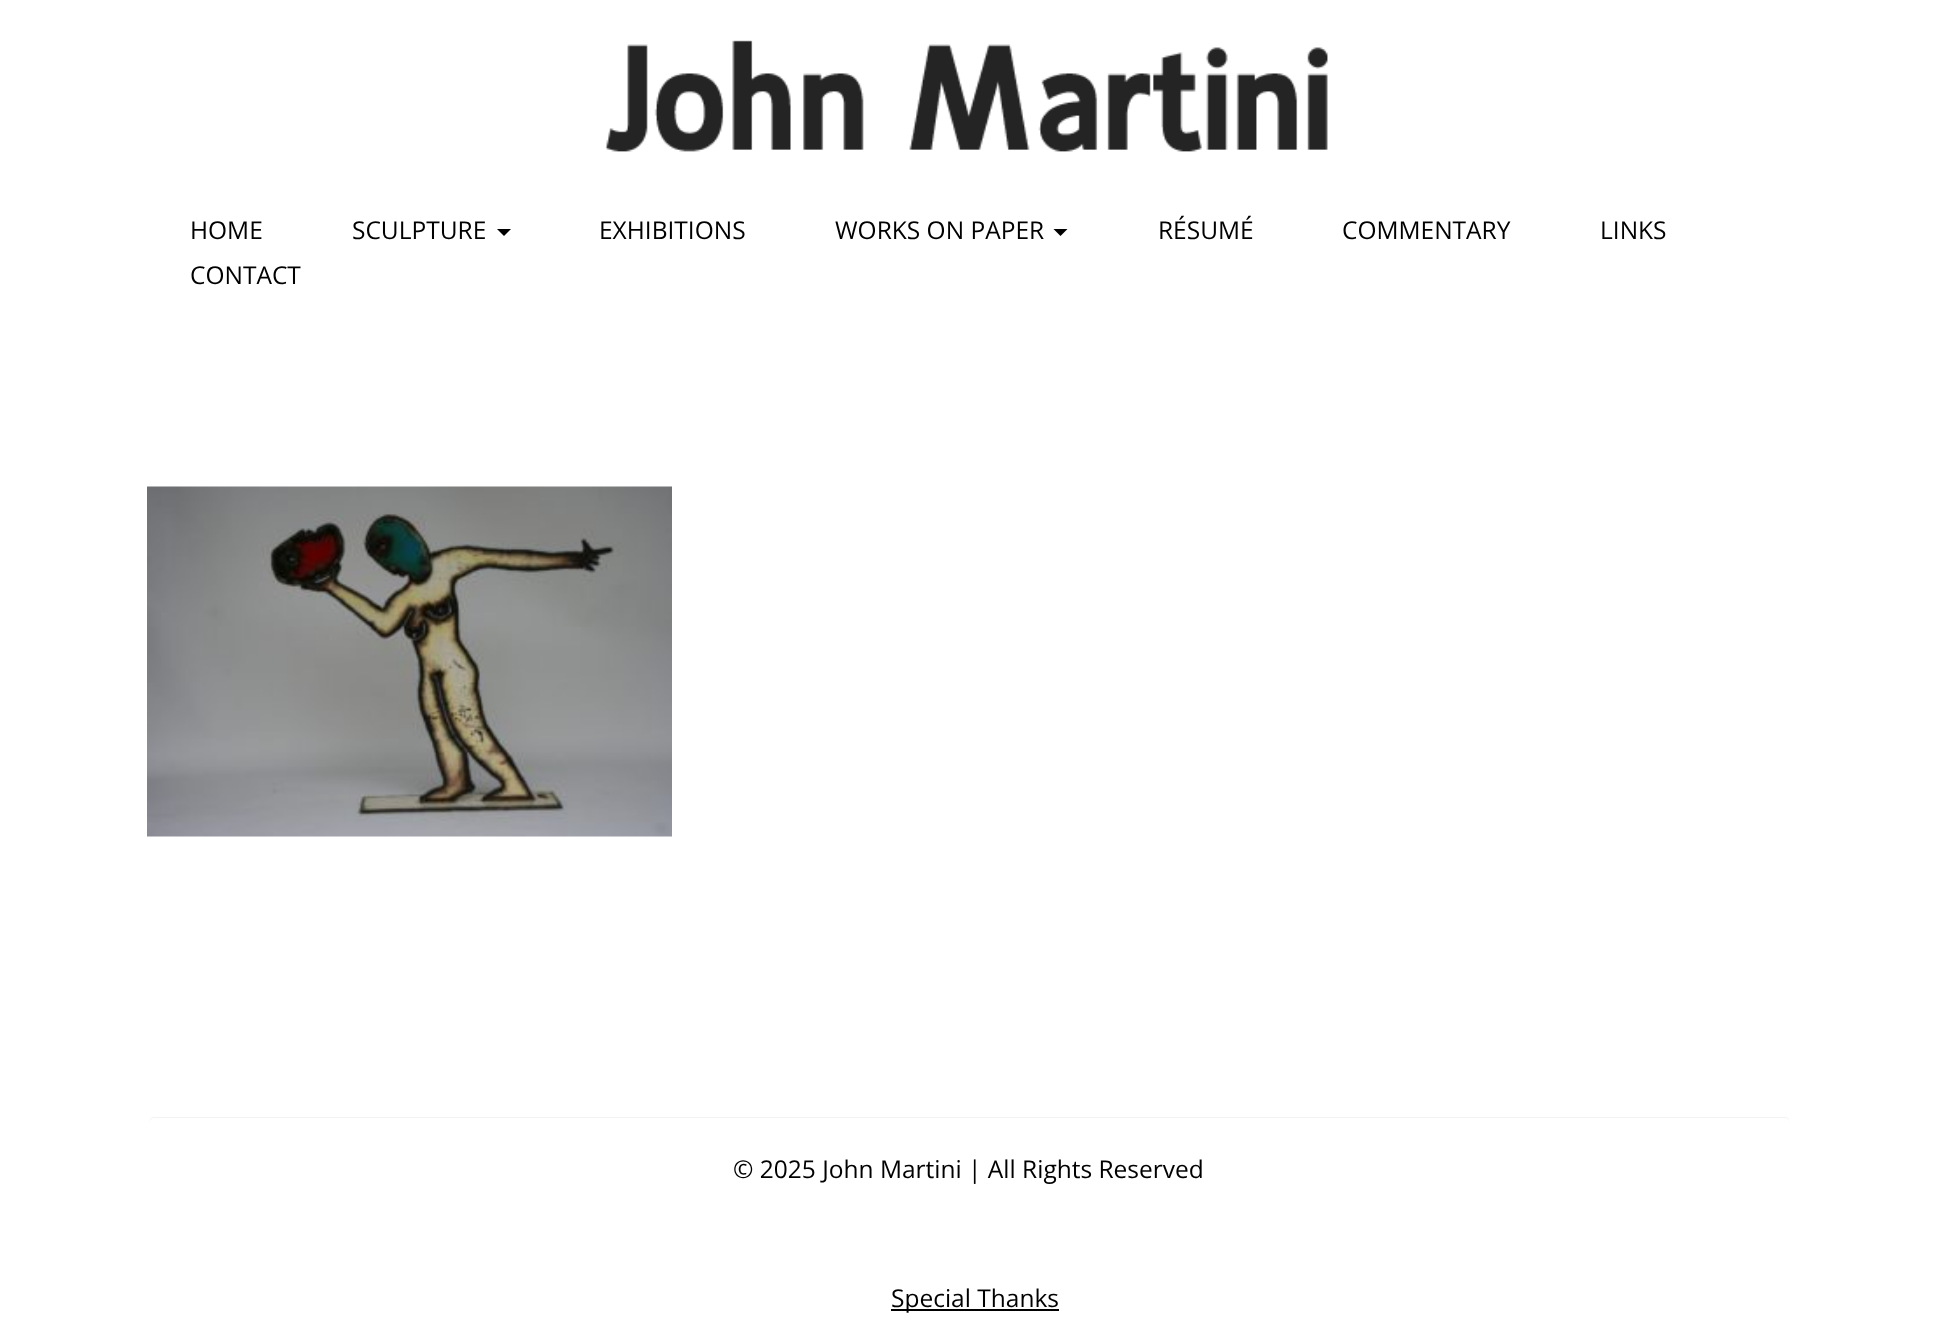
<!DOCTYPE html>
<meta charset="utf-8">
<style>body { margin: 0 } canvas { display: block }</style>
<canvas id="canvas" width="1937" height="1344"></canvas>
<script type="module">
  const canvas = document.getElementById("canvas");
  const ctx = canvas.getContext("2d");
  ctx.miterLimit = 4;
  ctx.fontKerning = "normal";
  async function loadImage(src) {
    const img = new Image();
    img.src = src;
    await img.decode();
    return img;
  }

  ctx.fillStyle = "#ffffff";
  ctx.fillRect(0, 0, 1937, 1344);
  ctx.drawImage(await loadImage("img1.png"), 605, 40, 723, 112);
  ctx.font = "24.5px Open Sans";
  ctx.fillStyle = "#000000";
  ctx.fillText("HOME", 190, 239);
  ctx.fillText("SCULPTURE", 352, 239);
  ctx.beginPath();
  ctx.moveTo(497, 229);
  ctx.lineTo(511, 229);
  ctx.lineTo(504, 236);
  ctx.closePath();
  ctx.fill();
  ctx.fillText("EXHIBITIONS", 599, 239);
  ctx.fillText("WORKS ON PAPER", 835, 239);
  ctx.beginPath();
  ctx.moveTo(1053.5, 229);
  ctx.lineTo(1067.5, 229);
  ctx.lineTo(1060.5, 236);
  ctx.closePath();
  ctx.fill();
  ctx.fillText("RÉSUMÉ", 1158, 239);
  ctx.fillText("COMMENTARY", 1342, 239);
  ctx.fillText("LINKS", 1600, 239);
  ctx.fillText("CONTACT", 190, 284);
  ctx.drawImage(await loadImage("img2.png"), 147, 486, 525, 351);
  ctx.fillStyle = "#f2f2f2";
  ctx.beginPath();
  ctx.moveTo(154, 1118);
  ctx.lineTo(1785, 1118);
  ctx.bezierCurveTo(1788, 1118, 1790, 1121, 1790, 1124);
  ctx.bezierCurveTo(1790, 1121, 1789, 1117, 1785, 1117);
  ctx.lineTo(154, 1117);
  ctx.bezierCurveTo(150, 1117, 149, 1121, 149, 1124);
  ctx.bezierCurveTo(149, 1121, 151, 1118, 154, 1118);
  ctx.closePath();
  ctx.fill();
  ctx.fillStyle = "#000000";
  ctx.fillText("© 2025 John Martini | All Rights Reserved", 733, 1178);
  ctx.fillRect(891, 1309, 168, 2);
  ctx.fillText("Special Thanks", 891, 1307);
</script>
